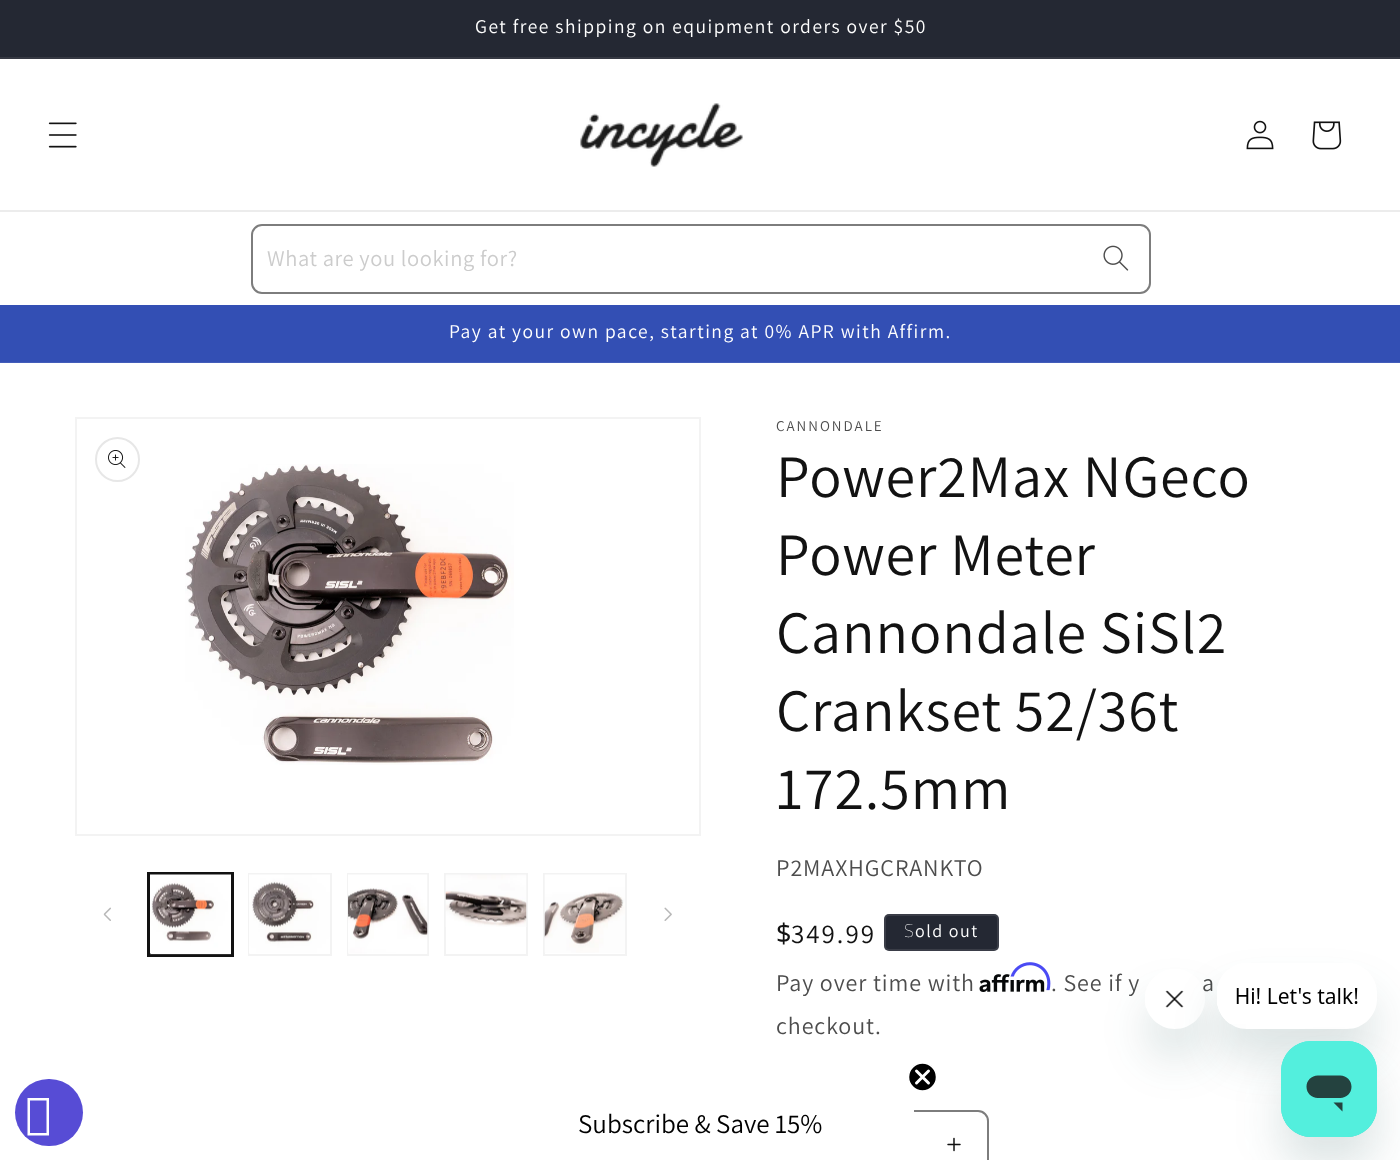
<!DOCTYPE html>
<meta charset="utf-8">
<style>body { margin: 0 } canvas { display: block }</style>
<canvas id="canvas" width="1400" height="1160"></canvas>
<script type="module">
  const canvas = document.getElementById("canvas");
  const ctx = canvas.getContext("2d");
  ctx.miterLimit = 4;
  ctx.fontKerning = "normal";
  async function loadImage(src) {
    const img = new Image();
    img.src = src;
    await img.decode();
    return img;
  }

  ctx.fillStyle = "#ffffff";
  ctx.fillRect(0, 0, 1400, 1160);
  ctx.fillStyle = "#242833";
  ctx.fillRect(0, 0, 1400, 57);
  ctx.fillStyle = "#363943";
  ctx.fillRect(0, 57, 1400, 2);
  ctx.letterSpacing = "1.5px";
  ctx.font = "200 19.5px Assistant";
  ctx.fillStyle = "#ffffff";
  ctx.fillText("Get free shipping on equipment orders over $50", 475, 33);
  ctx.fillStyle = "#ececec";
  ctx.fillRect(0, 210, 1400, 2);
  ctx.drawImage(await loadImage("img1.png"), 48, 122, 29, 26);
  ctx.drawImage(await loadImage("img2.png"), 580, 103, 163, 64);
  ctx.drawImage(await loadImage("img3.png"), 1246, 120, 28, 30);
  ctx.drawImage(await loadImage("img4.png"), 1312, 121, 30, 29);
  ctx.drawImage(await loadImage("img5.png"), 1103, 245, 26, 26);
  ctx.beginPath();
  ctx.roundRect(252, 225, 898, 68, 10);
  ctx.strokeStyle = "#7d7d7d";
  ctx.lineWidth = 2;
  ctx.stroke();
  ctx.letterSpacing = "0.6px";
  ctx.font = "200 22.5px Assistant";
  ctx.fillStyle = "#cccccc";
  ctx.fillText("What are you looking for?", 267, 266);
  ctx.fillStyle = "#334fb4";
  ctx.fillRect(0, 305, 1400, 57);
  ctx.fillStyle = "#435dba";
  ctx.fillRect(0, 362, 1400, 1);
  ctx.letterSpacing = "1.5px";
  ctx.font = "200 19.5px Assistant";
  ctx.fillStyle = "#ffffff";
  ctx.fillText("Pay at your own pace, starting at 0% APR with Affirm.", 449, 338);
  ctx.strokeStyle = "#f3f3f3";
  ctx.strokeRect(76, 418, 624, 417);
  ctx.beginPath();
  ctx.arc(117.5, 459.5, 21.5, 0, Math.PI * 2);
  ctx.strokeStyle = "#e7e7e7";
  ctx.stroke();
  ctx.drawImage(await loadImage("img6.png"), 108, 450, 18, 18);
  ctx.drawImage(await loadImage("img7.png"), 185, 464, 329, 301);
  ctx.drawImage(await loadImage("img8.png"), 103, 907, 8, 14);
  ctx.strokeStyle = "#121212";
  ctx.strokeRect(148, 873, 85, 83);
  ctx.strokeRect(150, 874, 82, 81);
  ctx.drawImage(await loadImage("img9.png"), 150, 874, 81, 81);
  ctx.strokeStyle = "#f3f3f3";
  ctx.strokeRect(249, 874, 82, 81);
  ctx.drawImage(await loadImage("img10.png"), 249, 874, 81, 80);
  ctx.strokeRect(348, 874, 80, 81);
  ctx.drawImage(await loadImage("img11.png"), 348, 874, 80, 80);
  ctx.strokeRect(445, 874, 82, 81);
  ctx.drawImage(await loadImage("img12.png"), 445, 874, 82, 53);
  ctx.strokeRect(544, 874, 82, 81);
  ctx.drawImage(await loadImage("img13.png"), 544, 874, 81, 79);
  ctx.drawImage(await loadImage("img14.png"), 664, 907, 8, 14);
  ctx.letterSpacing = "2px";
  ctx.font = "200 15px Assistant";
  ctx.fillStyle = "#4d4d4d";
  ctx.fillText("CANNONDALE", 776, 431);
  ctx.letterSpacing = "0.9px";
  ctx.font = "200 60px Assistant";
  ctx.fillStyle = "#121212";
  ctx.fillText("Power2Max NGeco", 776, 497);
  ctx.fillText("Power Meter", 776, 575);
  ctx.fillText("Cannondale SiSl2", 776, 653);
  ctx.fillText("Crankset 52/36t", 776, 731);
  ctx.fillText("172.5mm", 776, 809);
  ctx.font = "200 24px Assistant";
  ctx.fillStyle = "#4d4d4d";
  ctx.fillText("P2MAXHGCRANKTO", 776, 876);
  ctx.letterSpacing = "2px";
  ctx.font = "27px Noto Sans";
  ctx.fillStyle = "#121212";
  ctx.fillText("$", 776, 943);
  ctx.font = "200 27px Assistant";
  ctx.fillText("349.99", 791, 943);
  ctx.fillStyle = "#242833";
  ctx.beginPath();
  ctx.roundRect(884, 914, 115, 37, 5);
  ctx.fill();
  ctx.beginPath();
  ctx.roundRect(885, 915, 113, 35, 4);
  ctx.strokeStyle = "rgba(255, 255, 255, 0.1)";
  ctx.stroke();
  ctx.letterSpacing = "1.5px";
  ctx.font = "100 18px Noto Sans";
  ctx.fillStyle = "#ffffff";
  ctx.fillText("S", 904, 937);
  ctx.font = "200 18px Assistant";
  ctx.fillText("old out", 915, 937);
  ctx.letterSpacing = "0.9px";
  ctx.font = "200 24px Assistant";
  ctx.fillStyle = "#4d4d4d";
  ctx.fillText("Pay over time with", 776, 991);
  ctx.drawImage(await loadImage("img16.png"), 979, 974, 66, 18);
  ctx.drawImage(await loadImage("img15.png"), 1010, 962, 41, 29);
  ctx.fillText(". See if y", 1051, 991);
  ctx.fillText("a", 1202, 991);
  ctx.fillText("checkout.", 776, 1034);
  ctx.drawImage(await loadImage("img17.png"), 947, 1137, 14, 15);
  ctx.beginPath();
  ctx.roundRect(777, 1111, 211, 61, 10);
  ctx.strokeStyle = "#7d7d7d";
  ctx.stroke();
  ctx.fillStyle = "#574cd5";
  ctx.beginPath();
  ctx.roundRect(15, 1079, 68, 67, 33.5);
  ctx.fill();
  ctx.fillStyle = "#ffffff";
  ctx.beginPath();
  ctx.moveTo(27.5, 1135.5);
  ctx.lineTo(27.5, 1098);
  ctx.lineTo(49, 1098);
  ctx.lineTo(49, 1135.5);
  ctx.closePath();
  ctx.moveTo(30, 1133);
  ctx.lineTo(46.5, 1133);
  ctx.lineTo(46.5, 1100.5);
  ctx.lineTo(30, 1100.5);
  ctx.closePath();
  ctx.fill();
  ctx.beginPath();
  ctx.moveTo(494, 1086);
  ctx.lineTo(908, 1086);
  ctx.bezierCurveTo(911.5, 1086, 914, 1088.5, 914, 1092);
  ctx.lineTo(914, 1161);
  ctx.lineTo(488, 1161);
  ctx.lineTo(488, 1092);
  ctx.bezierCurveTo(488, 1088.5, 490.5, 1086, 494, 1086);
  ctx.closePath();
  ctx.fill();
  ctx.fillStyle = "#000000";
  ctx.beginPath();
  ctx.arc(922.5, 1077, 14, 0, Math.PI * 2);
  ctx.fill();
  ctx.strokeStyle = "#ffffff";
  ctx.lineWidth = 1.5;
  ctx.stroke();
  ctx.beginPath();
  ctx.moveTo(916.5, 1071);
  ctx.lineTo(928.5, 1083);
  ctx.moveTo(916.5, 1083);
  ctx.lineTo(928.5, 1071);
  ctx.closePath();
  ctx.lineWidth = 3;
  ctx.lineCap = "round";
  ctx.lineJoin = "round";
  ctx.stroke();
  ctx.letterSpacing = "0px";
  ctx.font = "200 27px Assistant";
  ctx.fillText("Subscribe & Save 15%", 578, 1133);
  ctx.save();
  ctx.beginPath();
  ctx.moveTo(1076, 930);
  ctx.lineTo(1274, 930);
  ctx.lineTo(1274, 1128);
  ctx.lineTo(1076, 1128);
  ctx.closePath();
  ctx.moveTo(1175, 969);
  ctx.bezierCurveTo(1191.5, 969, 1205, 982.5, 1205, 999);
  ctx.bezierCurveTo(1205, 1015.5, 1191.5, 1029, 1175, 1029);
  ctx.bezierCurveTo(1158.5, 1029, 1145, 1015.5, 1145, 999);
  ctx.bezierCurveTo(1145, 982.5, 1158.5, 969, 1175, 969);
  ctx.closePath();
  ctx.clip("evenodd");
  ctx.fillStyle = "rgba(23, 73, 77, 0.15)";
  ctx.filter = "blur(22.5px)";
  ctx.beginPath();
  ctx.roundRect(1145, 999, 60, 60, 30);
  ctx.fill();
  ctx.filter = "none";
  ctx.restore();
  ctx.drawImage(await loadImage("img19.png"), 1145, 979, 59, 29);
  ctx.save();
  ctx.beginPath();
  ctx.moveTo(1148, 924);
  ctx.lineTo(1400, 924);
  ctx.lineTo(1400, 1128);
  ctx.lineTo(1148, 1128);
  ctx.closePath();
  ctx.moveTo(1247, 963);
  ctx.lineTo(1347, 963);
  ctx.bezierCurveTo(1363.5, 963, 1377, 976.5, 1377, 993);
  ctx.lineTo(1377, 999);
  ctx.bezierCurveTo(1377, 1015.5, 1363.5, 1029, 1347, 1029);
  ctx.lineTo(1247, 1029);
  ctx.bezierCurveTo(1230.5, 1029, 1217, 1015.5, 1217, 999);
  ctx.lineTo(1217, 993);
  ctx.bezierCurveTo(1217, 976.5, 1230.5, 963, 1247, 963);
  ctx.closePath();
  ctx.clip("evenodd");
  ctx.fillStyle = "rgba(23, 73, 77, 0.15)";
  ctx.filter = "blur(22.5px)";
  ctx.beginPath();
  ctx.roundRect(1217, 993, 160, 66, 30);
  ctx.fill();
  ctx.filter = "none";
  ctx.restore();
  ctx.drawImage(await loadImage("img18.png"), 1217, 973, 141, 51);
  ctx.fillStyle = "rgba(23, 73, 77, 0.15)";
  ctx.filter = "blur(22.5px)";
  ctx.beginPath();
  ctx.roundRect(1281, 1071, 96, 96, 30);
  ctx.fill();
  ctx.filter = "none";
  ctx.drawImage(await loadImage("img20.png"), 1281, 1041, 96, 96);
</script>
